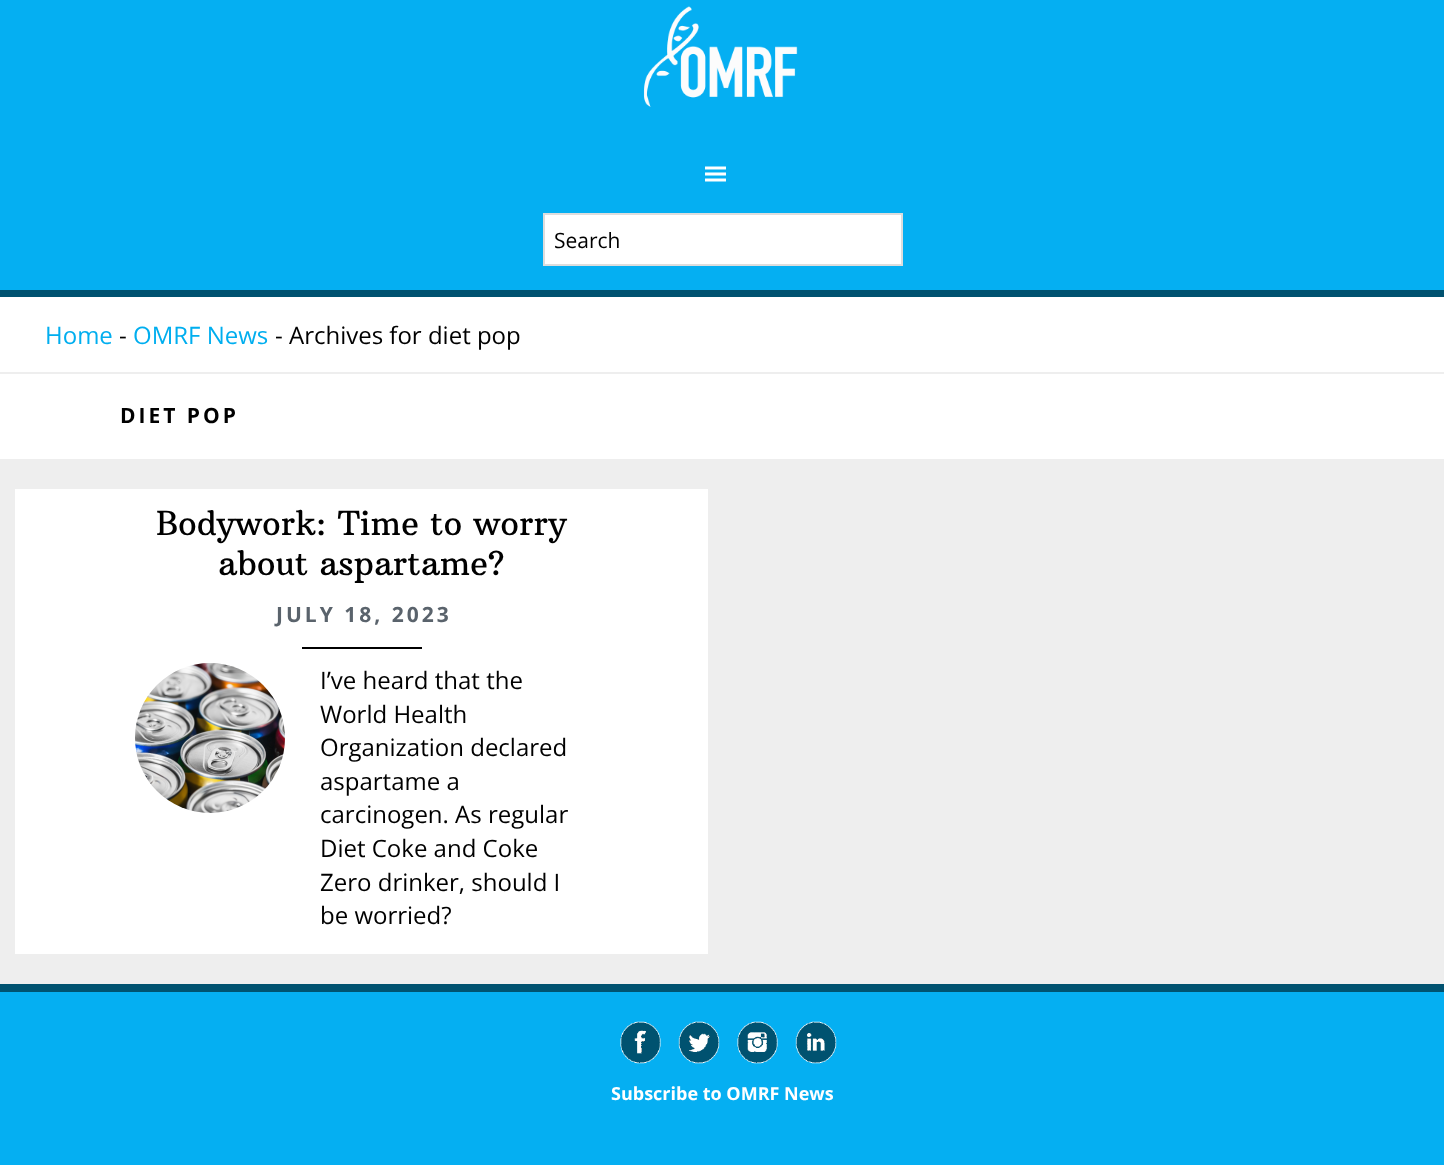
<!DOCTYPE html>
<meta charset="utf-8">
<style>body { margin: 0 } canvas { display: block }</style>
<canvas id="canvas" width="1444" height="1165"></canvas>
<script type="module">
  const canvas = document.getElementById("canvas");
  const ctx = canvas.getContext("2d");
  ctx.miterLimit = 4;
  ctx.fontKerning = "normal";
  async function loadImage(src) {
    const img = new Image();
    img.src = src;
    await img.decode();
    return img;
  }

  ctx.fillStyle = "#eeeeee";
  ctx.fillRect(0, 0, 1444, 1165);
  ctx.fillStyle = "#05aff2";
  ctx.fillRect(0, 0, 1444, 290);
  ctx.fillStyle = "#005270";
  ctx.fillRect(0, 290, 1444, 7);
  ctx.drawImage(await loadImage("img1.png"), 643, 6, 155, 101);
  ctx.drawImage(await loadImage("img2.png"), 705, 166, 21, 16);
  ctx.fillStyle = "#ffffff";
  ctx.beginPath();
  ctx.rect(544, 214, 358, 51);
  ctx.fill();
  ctx.strokeStyle = "#dddddd";
  ctx.lineWidth = 2;
  ctx.stroke();
  ctx.font = "21px Open Sans";
  ctx.fillStyle = "#000000";
  ctx.fillText("Search", 554, 248);
  ctx.fillStyle = "#ffffff";
  ctx.fillRect(0, 297, 1444, 75);
  ctx.font = "24px Open Sans";
  ctx.fillStyle = "#00aeef";
  ctx.fillText("Home", 45, 344);
  ctx.fillStyle = "#000000";
  ctx.fillText("-", 119, 344);
  ctx.fillStyle = "#00aeef";
  ctx.fillText("OMRF News", 133, 344);
  ctx.fillStyle = "#000000";
  ctx.fillText("- Archives for diet pop", 275, 344);
  ctx.fillStyle = "#ffffff";
  ctx.fillRect(0, 374, 1444, 85);
  ctx.letterSpacing = "3px";
  ctx.font = "bold 21px Open Sans";
  ctx.fillStyle = "#000000";
  ctx.fillText("DIET POP", 120, 423);
  ctx.fillStyle = "#ffffff";
  ctx.fillRect(15, 489, 693, 465);
  ctx.letterSpacing = "0px";
  ctx.font = "33px Arbutus Slab";
  ctx.fillStyle = "#000000";
  ctx.fillText("Bodywork: Time to worry", 156, 535);
  ctx.fillText("about aspartame?", 218, 575);
  ctx.letterSpacing = "3px";
  ctx.font = "bold 21px Open Sans";
  ctx.fillStyle = "#5a636c";
  ctx.fillText("JULY 18, 2023", 276, 622);
  ctx.fillStyle = "#000000";
  ctx.fillRect(302, 647, 120, 2);
  ctx.drawImage(await loadImage("img3.png"), 135, 663, 150, 150);
  ctx.letterSpacing = "0px";
  ctx.font = "24px Open Sans";
  ctx.fillText("I’ve heard that the", 320, 689);
  ctx.fillText("World Health", 320, 723);
  ctx.fillText("Organization declared", 320, 756);
  ctx.fillText("aspartame a", 320, 790);
  ctx.fillText("carcinogen. As regular", 320, 823);
  ctx.fillText("Diet Coke and Coke", 320, 857);
  ctx.fillText("Zero drinker, should I", 320, 891);
  ctx.fillText("be worried?", 320, 924);
  ctx.fillStyle = "#05aff2";
  ctx.fillRect(0, 992, 1444, 173);
  ctx.fillStyle = "#005270";
  ctx.fillRect(0, 984, 1444, 8);
  ctx.drawImage(await loadImage("img4.png"), 620, 1021, 41, 43);
  ctx.drawImage(await loadImage("img5.png"), 678, 1021, 42, 43);
  ctx.drawImage(await loadImage("img6.png"), 737, 1021, 41, 43);
  ctx.drawImage(await loadImage("img7.png"), 795, 1021, 42, 43);
  ctx.font = "bold 18px Open Sans";
  ctx.fillStyle = "#ffffff";
  ctx.fillText("Subscribe to OMRF News", 611, 1100);
</script>
